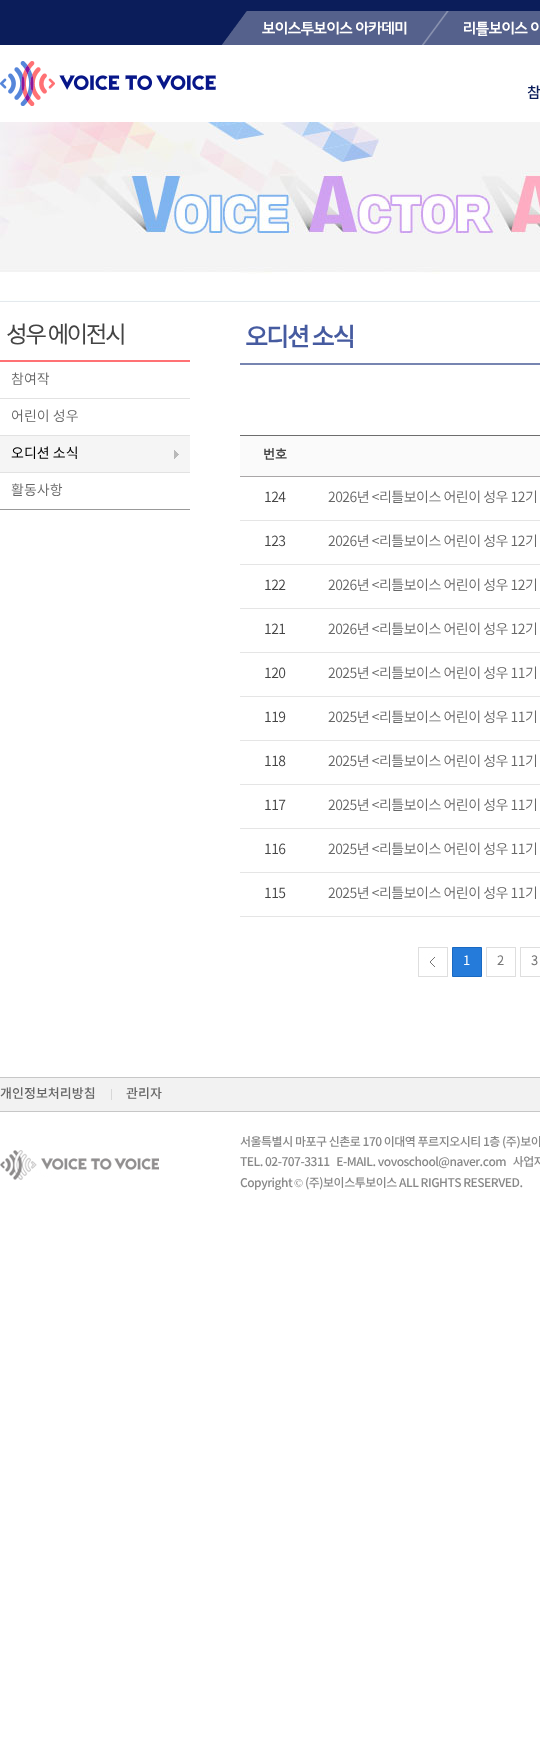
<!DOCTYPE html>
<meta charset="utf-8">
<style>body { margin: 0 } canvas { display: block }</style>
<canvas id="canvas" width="540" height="1756"></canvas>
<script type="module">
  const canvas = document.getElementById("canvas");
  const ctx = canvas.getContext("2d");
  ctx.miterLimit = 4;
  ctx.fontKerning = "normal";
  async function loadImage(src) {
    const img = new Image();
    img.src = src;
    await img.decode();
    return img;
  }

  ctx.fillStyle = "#ffffff";
  ctx.fillRect(0, 0, 540, 1756);
  ctx.fillStyle = "#0b1d5a";
  ctx.fillRect(0, 0, 540, 45);
  ctx.drawImage(await loadImage("img1.png"), 221, 11, 319, 34);
  ctx.drawImage(await loadImage("img2.png"), 0, 61, 216, 45);
  ctx.letterSpacing = "-1px";
  ctx.font = "500 15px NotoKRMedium";
  ctx.fillText("참", 527, 98);
  ctx.drawImage(await loadImage("img3.png"), 0, 274, 540, 28);
  ctx.drawImage(await loadImage("img4.png"), 0, 122, 540, 152);
  ctx.letterSpacing = "-2px";
  ctx.font = "bold 23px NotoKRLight";
  ctx.fillStyle = "#444444";
  ctx.fillText("성우 에이전시", 6, 343);
  ctx.fillStyle = "#ff7174";
  ctx.fillRect(0, 360, 190, 2);
  ctx.fillStyle = "#999999";
  ctx.fillRect(0, 509, 190, 1);
  ctx.letterSpacing = "0px";
  ctx.font = "300 14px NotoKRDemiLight";
  ctx.fillStyle = "#666666";
  ctx.fillText("참여작", 11, 384);
  ctx.fillStyle = "#e2e2e2";
  ctx.fillRect(0, 398, 190, 1);
  ctx.fillStyle = "#666666";
  ctx.fillText("어린이 성우", 11, 421);
  ctx.fillStyle = "#e2e2e2";
  ctx.fillRect(0, 435, 190, 1);
  ctx.fillStyle = "#f5f5f5";
  ctx.fillRect(0, 436, 190, 36);
  ctx.drawImage(await loadImage("img5.png"), 174, 450, 5, 9);
  ctx.font = "14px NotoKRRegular";
  ctx.fillStyle = "#000000";
  ctx.fillText("오디션 소식", 11, 458);
  ctx.fillStyle = "#e2e2e2";
  ctx.fillRect(0, 472, 190, 1);
  ctx.font = "300 14px NotoKRDemiLight";
  ctx.fillStyle = "#666666";
  ctx.fillText("활동사항", 11, 495);
  ctx.fillStyle = "#7785b1";
  ctx.fillRect(240, 363, 300, 2);
  ctx.letterSpacing = "-2px";
  ctx.font = "bold 25px NotoKRRegular";
  ctx.fillStyle = "#465ba0";
  ctx.fillText("오디션 소식", 245, 346);
  ctx.fillStyle = "#6d6d6d";
  ctx.fillRect(240, 435, 300, 1);
  ctx.fillStyle = "#a9a6a7";
  ctx.fillRect(240, 476, 300, 1);
  ctx.fillStyle = "#fafafa";
  ctx.fillRect(240, 436, 300, 40);
  ctx.letterSpacing = "0px";
  ctx.font = "bold 13px NotoKRRegular";
  ctx.fillStyle = "#444444";
  ctx.fillText("번호", 263, 459);
  ctx.letterSpacing = "-0.5px";
  ctx.font = "300 14px NotoKRDemiLight";
  ctx.fillText("124", 264, 502);
  ctx.fillStyle = "#e5e5e5";
  ctx.fillRect(240, 520, 300, 1);
  ctx.fillStyle = "#666666";
  ctx.fillText("2026년 <리틀보이스 어린이 성우 12기", 328, 502);
  ctx.fillStyle = "#444444";
  ctx.fillText("123", 264, 546);
  ctx.fillStyle = "#e5e5e5";
  ctx.fillRect(240, 564, 300, 1);
  ctx.fillStyle = "#666666";
  ctx.fillText("2026년 <리틀보이스 어린이 성우 12기", 328, 546);
  ctx.fillStyle = "#444444";
  ctx.fillText("122", 264, 590);
  ctx.fillStyle = "#e5e5e5";
  ctx.fillRect(240, 608, 300, 1);
  ctx.fillStyle = "#666666";
  ctx.fillText("2026년 <리틀보이스 어린이 성우 12기", 328, 590);
  ctx.fillStyle = "#444444";
  ctx.fillText("121", 264, 634);
  ctx.fillStyle = "#e5e5e5";
  ctx.fillRect(240, 652, 300, 1);
  ctx.fillStyle = "#666666";
  ctx.fillText("2026년 <리틀보이스 어린이 성우 12기", 328, 634);
  ctx.fillStyle = "#444444";
  ctx.fillText("120", 264, 678);
  ctx.fillStyle = "#e5e5e5";
  ctx.fillRect(240, 696, 300, 1);
  ctx.fillStyle = "#666666";
  ctx.fillText("2025년 <리틀보이스 어린이 성우 11기", 328, 678);
  ctx.fillStyle = "#444444";
  ctx.fillText("119", 264, 722);
  ctx.fillStyle = "#e5e5e5";
  ctx.fillRect(240, 740, 300, 1);
  ctx.fillStyle = "#666666";
  ctx.fillText("2025년 <리틀보이스 어린이 성우 11기", 328, 722);
  ctx.fillStyle = "#444444";
  ctx.fillText("118", 264, 766);
  ctx.fillStyle = "#e5e5e5";
  ctx.fillRect(240, 784, 300, 1);
  ctx.fillStyle = "#666666";
  ctx.fillText("2025년 <리틀보이스 어린이 성우 11기", 328, 766);
  ctx.fillStyle = "#444444";
  ctx.fillText("117", 264, 810);
  ctx.fillStyle = "#e5e5e5";
  ctx.fillRect(240, 828, 300, 1);
  ctx.fillStyle = "#666666";
  ctx.fillText("2025년 <리틀보이스 어린이 성우 11기", 328, 810);
  ctx.fillStyle = "#444444";
  ctx.fillText("116", 264, 854);
  ctx.fillStyle = "#e5e5e5";
  ctx.fillRect(240, 872, 300, 1);
  ctx.fillStyle = "#666666";
  ctx.fillText("2025년 <리틀보이스 어린이 성우 11기", 328, 854);
  ctx.fillStyle = "#444444";
  ctx.fillText("115", 264, 898);
  ctx.fillStyle = "#e5e5e5";
  ctx.fillRect(240, 916, 300, 1);
  ctx.fillStyle = "#666666";
  ctx.fillText("2025년 <리틀보이스 어린이 성우 11기", 328, 898);
  ctx.drawImage(await loadImage("img6.png"), 418, 947, 30, 30);
  ctx.fillStyle = "#257bda";
  ctx.beginPath();
  ctx.rect(452.5, 947.5, 29, 29);
  ctx.fill();
  ctx.strokeStyle = "#1969c2";
  ctx.stroke();
  ctx.letterSpacing = "0px";
  ctx.font = "13px NotoKRRegular";
  ctx.fillStyle = "#ffffff";
  ctx.fillText("1", 463, 965);
  ctx.strokeStyle = "#dedede";
  ctx.strokeRect(486.5, 947.5, 29, 29);
  ctx.fillStyle = "#777777";
  ctx.fillText("2", 497, 965);
  ctx.strokeRect(520.5, 947.5, 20, 29);
  ctx.fillText("3", 531, 965);
  ctx.fillStyle = "#f2f2f2";
  ctx.fillRect(0, 1078, 540, 33);
  ctx.fillStyle = "#c7c7c7";
  ctx.fillRect(0, 1077, 540, 1);
  ctx.fillRect(0, 1111, 540, 1);
  ctx.font = "500 13px NotoKRMedium";
  ctx.fillStyle = "#666666";
  ctx.fillText("개인정보처리방침", 0, 1098);
  ctx.fillStyle = "#d7d7d7";
  ctx.fillRect(111, 1089, 1, 11);
  ctx.fillStyle = "#666666";
  ctx.fillText("관리자", 126, 1098);
  ctx.drawImage(await loadImage("img7.png"), 0, 1150, 159, 30);
  ctx.letterSpacing = "-0.5px";
  ctx.font = "500 12px NotoKRMedium";
  ctx.fillStyle = "#888888";
  ctx.fillText("서울특별시 마포구 신촌로 170 이대역 푸르지오시티 1층 (주)보이", 240, 1146);
  ctx.fillText("TEL. 02-707-3311   E-MAIL. vovoschool@naver.com   사업자", 240, 1166);
  ctx.fillText("Copyright", 240, 1187);
  ctx.font = "12px Liberation Serif";
  ctx.fillText("©", 294, 1187);
  ctx.font = "500 12px NotoKRMedium";
  ctx.fillText("(주)보이스투보이스 ALL RIGHTS RESERVED.", 305, 1187);
</script>
